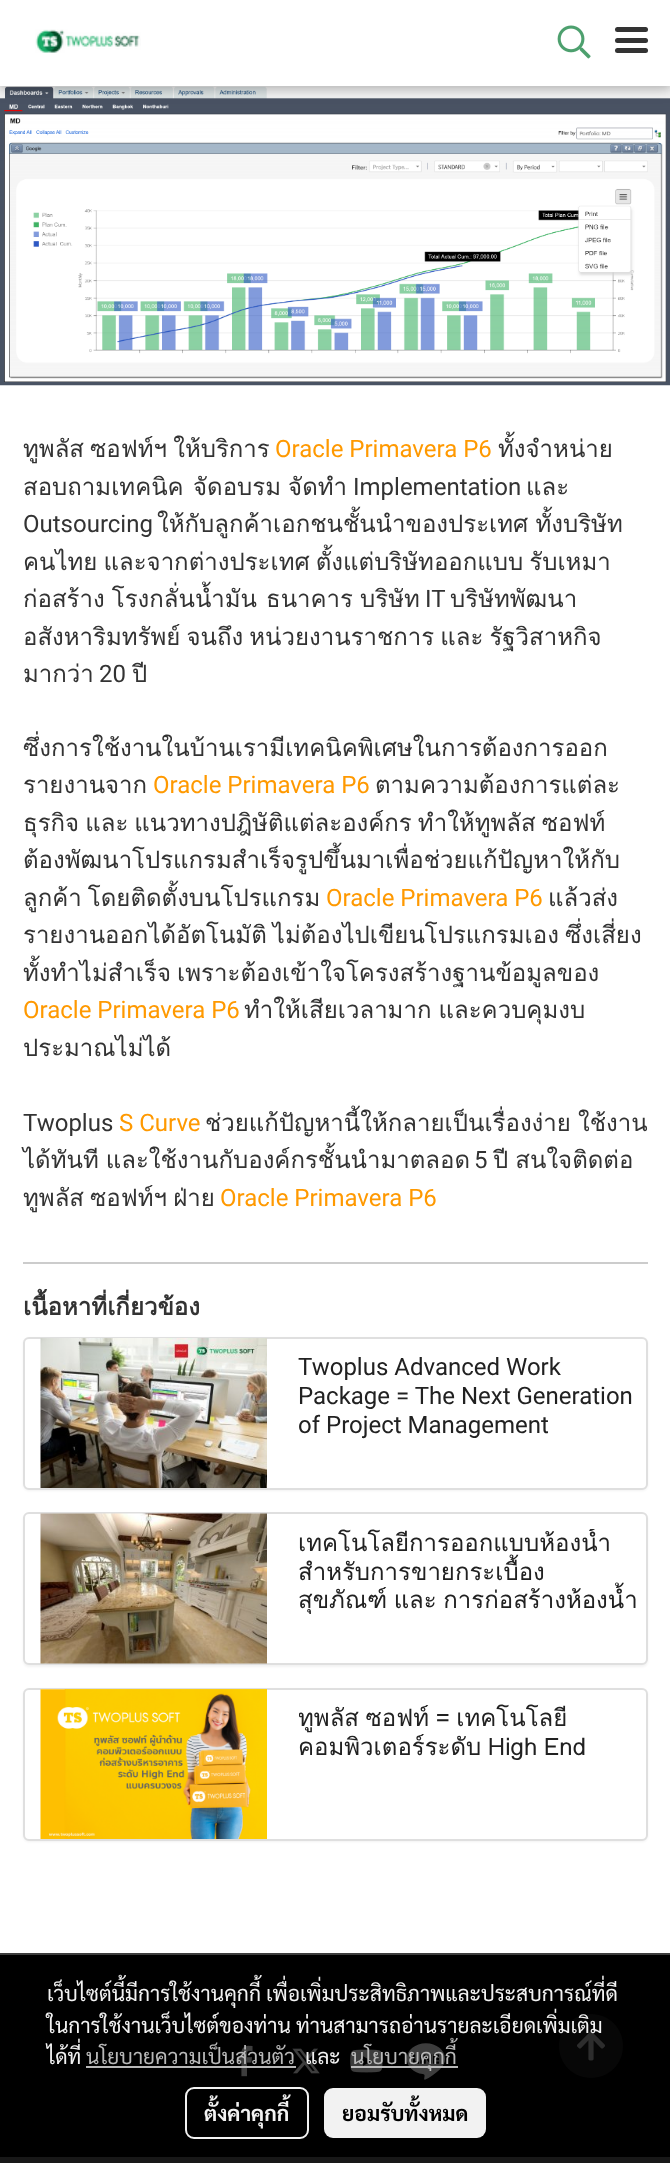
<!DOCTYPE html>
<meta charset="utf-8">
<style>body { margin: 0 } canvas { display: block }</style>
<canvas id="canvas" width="670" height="2163"></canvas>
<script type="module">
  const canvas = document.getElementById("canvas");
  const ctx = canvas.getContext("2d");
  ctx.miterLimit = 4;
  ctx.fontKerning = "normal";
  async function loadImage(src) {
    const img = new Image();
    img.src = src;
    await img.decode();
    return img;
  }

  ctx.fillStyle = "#ffffff";
  ctx.fillRect(0, 0, 670, 2163);
  ctx.fillStyle = "#3d3d3d";
  ctx.fillRect(0, 1953, 670, 2);
  ctx.drawImage(await loadImage("img3.png"), 0, 86, 670, 300);
  ctx.fillStyle = "rgba(0, 0, 0, 0.12)";
  ctx.filter = "blur(7.5px)";
  ctx.beginPath();
  ctx.rect(0, 3, 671, 86);
  ctx.fill();
  ctx.filter = "none";
  ctx.fillStyle = "rgba(0, 0, 0, 0.16)";
  ctx.filter = "blur(4px)";
  ctx.beginPath();
  ctx.rect(0, 3, 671, 86);
  ctx.fill();
  ctx.filter = "none";
  ctx.fillStyle = "#ffffff";
  ctx.fillRect(0, 0, 670, 86);
  ctx.drawImage(await loadImage("img1.png"), 35, 29, 106, 24);
  ctx.drawImage(await loadImage("img2.png"), 557, 25, 34, 34);
  ctx.fillStyle = "#333333";
  ctx.beginPath();
  ctx.roundRect(615, 38, 33, 5, 2.5);
  ctx.fill();
  ctx.beginPath();
  ctx.roundRect(615, 27, 33, 5, 2.5);
  ctx.fill();
  ctx.beginPath();
  ctx.roundRect(615, 48, 33, 5, 2.5);
  ctx.fill();
  ctx.wordSpacing = "-2px";
  ctx.font = "24px Loma";
  ctx.fillText("ทูพลัส ซอฟท์ฯ ให้บริการ", 23, 457);
  ctx.wordSpacing = "0px";
  ctx.font = "24px Roboto";
  ctx.fillStyle = "#ff9900";
  ctx.fillText("Oracle Primavera P6", 275, 457);
  ctx.font = "24px Loma";
  ctx.fillStyle = "#333333";
  ctx.fillText("ทั้งจำหน่าย", 498, 457);
  ctx.fillText("สอบถามเทคนิค", 23, 495);
  ctx.wordSpacing = "-1px";
  ctx.fillText("จัดอบรม จัดทำ", 193, 495);
  ctx.wordSpacing = "0px";
  ctx.font = "24px Roboto";
  ctx.fillText("Implementation", 353, 495);
  ctx.font = "24px Loma";
  ctx.fillText("และ", 526, 495);
  ctx.font = "24px Roboto";
  ctx.fillText("Outsourcing", 23, 532);
  ctx.wordSpacing = "-1px";
  ctx.font = "24px Loma";
  ctx.fillText("ให้กับลูกค้าเอกชนชั้นนำของประเทศ ทั้งบริษัท", 157, 532);
  ctx.wordSpacing = "-2px";
  ctx.fillText("คนไทย และจากต่างประเทศ ตั้งแต่บริษัทออกแบบ รับเหมา", 23, 570);
  ctx.wordSpacing = "-1px";
  ctx.fillText("ก่อสร้าง โรงกลั่นน้ำมัน", 23, 607);
  ctx.fillText("ธนาคาร บริษัท", 266, 607);
  ctx.wordSpacing = "0px";
  ctx.font = "24px Roboto";
  ctx.fillText("IT", 425, 607);
  ctx.font = "24px Loma";
  ctx.fillText("บริษัทพัฒนา", 450, 607);
  ctx.wordSpacing = "-2px";
  ctx.fillText("อสังหาริมทรัพย์ จนถึง หน่วยงานราชการ และ รัฐวิสาหกิจ", 23, 645);
  ctx.wordSpacing = "0px";
  ctx.fillText("มากว่า", 23, 682);
  ctx.font = "24px Roboto";
  ctx.fillText("20", 99, 682);
  ctx.font = "24px Loma";
  ctx.fillText("ปี", 132, 682);
  ctx.fillText("ซึ่งการใช้งานในบ้านเรามีเทคนิคพิเศษในการต้องการออก", 23, 756);
  ctx.fillText("รายงานจาก", 23, 793);
  ctx.font = "24px Roboto";
  ctx.fillStyle = "#ff9900";
  ctx.fillText("Oracle Primavera P6", 153, 793);
  ctx.font = "24px Loma";
  ctx.fillStyle = "#333333";
  ctx.fillText("ตามความต้องการแต่ละ", 375, 793);
  ctx.wordSpacing = "-2px";
  ctx.fillText("ธุรกิจ และ แนวทางปฎิษัติแต่ละองค์กร ทำให้ทูพลัส ซอฟท์", 23, 831);
  ctx.wordSpacing = "0px";
  ctx.fillText("ต้องพัฒนาโปรแกรมสำเร็จรูปขึ้นมาเพื่อช่วยแก้ปัญหาให้กับ", 23, 868);
  ctx.wordSpacing = "-2px";
  ctx.fillText("ลูกค้า โดยติดตั้งบนโปรแกรม", 23, 906);
  ctx.wordSpacing = "0px";
  ctx.font = "24px Roboto";
  ctx.fillStyle = "#ff9900";
  ctx.fillText("Oracle Primavera P6", 326, 906);
  ctx.font = "24px Loma";
  ctx.fillStyle = "#333333";
  ctx.fillText("แล้วส่ง", 548, 906);
  ctx.wordSpacing = "-2px";
  ctx.fillText("รายงานออกได้อัตโนมัติ ไม่ต้องไปเขียนโปรแกรมเอง ซึ่งเสี่ยง", 23, 943);
  ctx.fillText("ทั้งทำไม่สำเร็จ เพราะต้องเข้าใจโครงสร้างฐานข้อมูลของ", 23, 981);
  ctx.wordSpacing = "0px";
  ctx.font = "24px Roboto";
  ctx.fillStyle = "#ff9900";
  ctx.fillText("Oracle Primavera P6", 23, 1018);
  ctx.wordSpacing = "-1px";
  ctx.font = "24px Loma";
  ctx.fillStyle = "#333333";
  ctx.fillText("ทำให้เสียเวลามาก และควบคุมงบ", 244, 1018);
  ctx.wordSpacing = "0px";
  ctx.fillText("ประมาณไม่ได้", 23, 1056);
  ctx.font = "24px Roboto";
  ctx.fillText("Twoplus", 23, 1131);
  ctx.fillStyle = "#ff9900";
  ctx.fillText("S Curve", 119, 1131);
  ctx.wordSpacing = "-1px";
  ctx.font = "24px Loma";
  ctx.fillStyle = "#333333";
  ctx.fillText("ช่วยแก้ปัญหานี้ให้กลายเป็นเรื่องง่าย ใช้งาน", 205, 1131);
  ctx.fillText("ได้ทันที และใช้งานกับองค์กรชั้นนำมาตลอด", 23, 1168);
  ctx.wordSpacing = "0px";
  ctx.font = "24px Roboto";
  ctx.fillText("5", 474, 1168);
  ctx.wordSpacing = "-1px";
  ctx.font = "24px Loma";
  ctx.fillText("ปี สนใจติดต่อ", 493, 1168);
  ctx.wordSpacing = "-2px";
  ctx.fillText("ทูพลัส ซอฟท์ฯ ฝ่าย", 23, 1206);
  ctx.wordSpacing = "0px";
  ctx.font = "24px Roboto";
  ctx.fillStyle = "#ff9900";
  ctx.fillText("Oracle Primavera P6", 220, 1206);
  ctx.fillStyle = "#cccccc";
  ctx.fillRect(23, 1262, 625, 2);
  ctx.font = "bold 24px Loma";
  ctx.fillStyle = "#333333";
  ctx.fillText("เนื้อหาที่เกี่ยวข้อง", 23, 1315);
  ctx.fillStyle = "rgba(0, 0, 0, 0.05)";
  ctx.filter = "blur(1px)";
  ctx.beginPath();
  ctx.roundRect(23, 1338, 625, 153, 6);
  ctx.fill();
  ctx.filter = "none";
  ctx.fillStyle = "#ffffff";
  ctx.beginPath();
  ctx.roundRect(24, 1338, 623, 151, 5);
  ctx.fill();
  ctx.strokeStyle = "#dfdfdf";
  ctx.lineWidth = 2;
  ctx.stroke();
  ctx.drawImage(await loadImage("img4.png"), 40, 1338, 227, 150);
  ctx.font = "24px Roboto";
  ctx.fillStyle = "#212121";
  ctx.fillText("Twoplus Advanced Work", 298, 1375);
  ctx.fillText("Package = The Next Generation", 298, 1404);
  ctx.fillText("of Project Management", 298, 1433);
  ctx.fillStyle = "rgba(0, 0, 0, 0.05)";
  ctx.filter = "blur(1px)";
  ctx.beginPath();
  ctx.roundRect(23, 1514, 625, 153, 6);
  ctx.fill();
  ctx.filter = "none";
  ctx.fillStyle = "#ffffff";
  ctx.beginPath();
  ctx.roundRect(24, 1513, 623, 151, 5);
  ctx.fill();
  ctx.stroke();
  ctx.drawImage(await loadImage("img5.png"), 40, 1513, 227, 151);
  ctx.save();
  ctx.beginPath();
  ctx.rect(299, 1529, 340, 85);
  ctx.clip();
  ctx.font = "24px Loma";
  ctx.fillStyle = "#212121";
  ctx.fillText("เทคโนโลยีการออกแบบห้องน้ำ", 298, 1551);
  ctx.fillText("สำหรับการขายกระเบื้อง", 298, 1580);
  ctx.wordSpacing = "-1.5px";
  ctx.fillText("สุขภัณฑ์ และ การก่อสร้างห้องน้ำ", 298, 1608);
  ctx.restore();
  ctx.fillStyle = "rgba(0, 0, 0, 0.05)";
  ctx.filter = "blur(1px)";
  ctx.beginPath();
  ctx.roundRect(23, 1689, 625, 153, 6);
  ctx.fill();
  ctx.filter = "none";
  ctx.fillStyle = "#ffffff";
  ctx.beginPath();
  ctx.roundRect(24, 1689, 623, 151, 5);
  ctx.fill();
  ctx.stroke();
  ctx.drawImage(await loadImage("img6.png"), 40, 1689, 227, 150);
  ctx.save();
  ctx.beginPath();
  ctx.rect(299, 1704, 340, 57);
  ctx.clip();
  ctx.wordSpacing = "-1.5px";
  ctx.font = "24px Loma";
  ctx.fillStyle = "#212121";
  ctx.fillText("ทูพลัส ซอฟท์ = เทคโนโลยี", 298, 1726);
  ctx.restore();
  ctx.wordSpacing = "-1.5px";
  ctx.font = "24px Loma";
  ctx.fillStyle = "#212121";
  ctx.fillText("คอมพิวเตอร์ระดับ High End", 298, 1755);
  ctx.fillStyle = "#000000";
  ctx.fillRect(0, 1955, 670, 202);
  ctx.drawImage(await loadImage("img7.png"), 236, 2045, 17, 32);
  ctx.drawImage(await loadImage("img8.png"), 292, 2048, 28, 26);
  ctx.drawImage(await loadImage("img9.png"), 350, 2049, 33, 24);
  ctx.drawImage(await loadImage("img10.png"), 406, 2034, 39, 54);
  ctx.fillStyle = "#181818";
  ctx.fillRect(0, 2157, 670, 6);
  ctx.wordSpacing = "0px";
  ctx.font = "21px Sarabun";
  ctx.fillStyle = "#f2f2f2";
  ctx.fillText("เว็บไซต์นี้มีการใช้งานคุกกี้ เพื่อเพิ่มประสิทธิภาพและประสบการณ์ที่ดี", 47, 2001);
  ctx.fillStyle = "#070707";
  ctx.beginPath();
  ctx.moveTo(591, 2014);
  ctx.bezierCurveTo(573, 2014, 559, 2028, 559, 2046);
  ctx.bezierCurveTo(559, 2064, 573, 2078, 591, 2078);
  ctx.bezierCurveTo(609, 2078, 623, 2064, 623, 2046);
  ctx.bezierCurveTo(623, 2028, 609, 2014, 591, 2014);
  ctx.closePath();
  ctx.fill();
  ctx.drawImage(await loadImage("img11.png"), 576, 2031, 29, 30);
  ctx.fillStyle = "#f2f2f2";
  ctx.fillText("ในการใช้งานเว็บไซต์ของท่าน ท่านสามารถอ่านรายละเอียดเพิ่มเติม", 47, 2033);
  ctx.fillText("ได้ที่", 47, 2064);
  ctx.fillStyle = "#b8b8b8";
  ctx.fillText("นโยบายความเป็นส่วนตัว", 86, 2064);
  ctx.fillStyle = "rgba(194, 194, 194, 0.95)";
  ctx.fillRect(86, 2066, 210, 2);
  ctx.fillStyle = "#f2f2f2";
  ctx.fillText("และ", 305, 2064);
  ctx.fillStyle = "rgba(194, 194, 194, 0.95)";
  ctx.fillRect(351, 2066, 107, 2);
  ctx.fillStyle = "#b8b8b8";
  ctx.fillText("นโยบายคุกกี้", 351, 2064);
  ctx.beginPath();
  ctx.roundRect(186, 2088, 122, 50, 8);
  ctx.strokeStyle = "#f2f2f2";
  ctx.stroke();
  ctx.font = "bold 21px Sarabun";
  ctx.fillStyle = "#f2f2f2";
  ctx.fillText("ตั้งค่าคุกกี้", 204, 2121);
  ctx.beginPath();
  ctx.roundRect(324, 2088, 162, 50, 9);
  ctx.fill();
  ctx.fillStyle = "#000000";
  ctx.fillText("ยอมรับทั้งหมด", 342, 2121);
</script>
